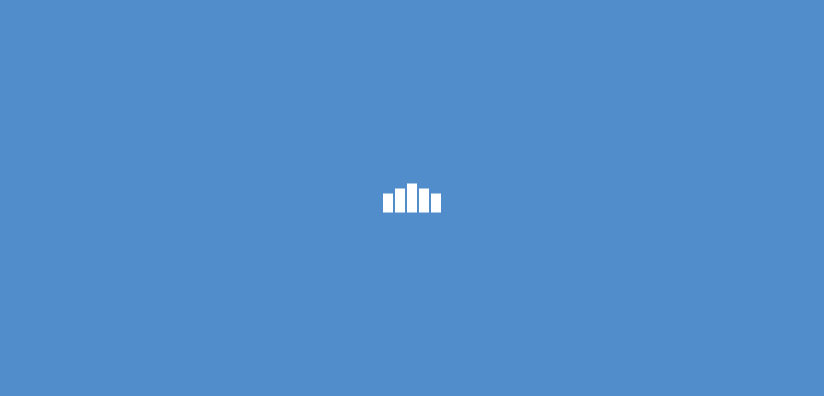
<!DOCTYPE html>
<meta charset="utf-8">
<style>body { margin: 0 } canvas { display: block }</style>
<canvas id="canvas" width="824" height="396"></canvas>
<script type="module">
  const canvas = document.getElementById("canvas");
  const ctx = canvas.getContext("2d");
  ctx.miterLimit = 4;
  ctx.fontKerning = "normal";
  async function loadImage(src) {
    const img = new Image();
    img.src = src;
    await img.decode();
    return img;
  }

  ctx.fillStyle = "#508dca";
  ctx.fillRect(0, 0, 824, 396);
  ctx.drawImage(await loadImage("img1.png"), 383, 183, 58, 30);
</script>
